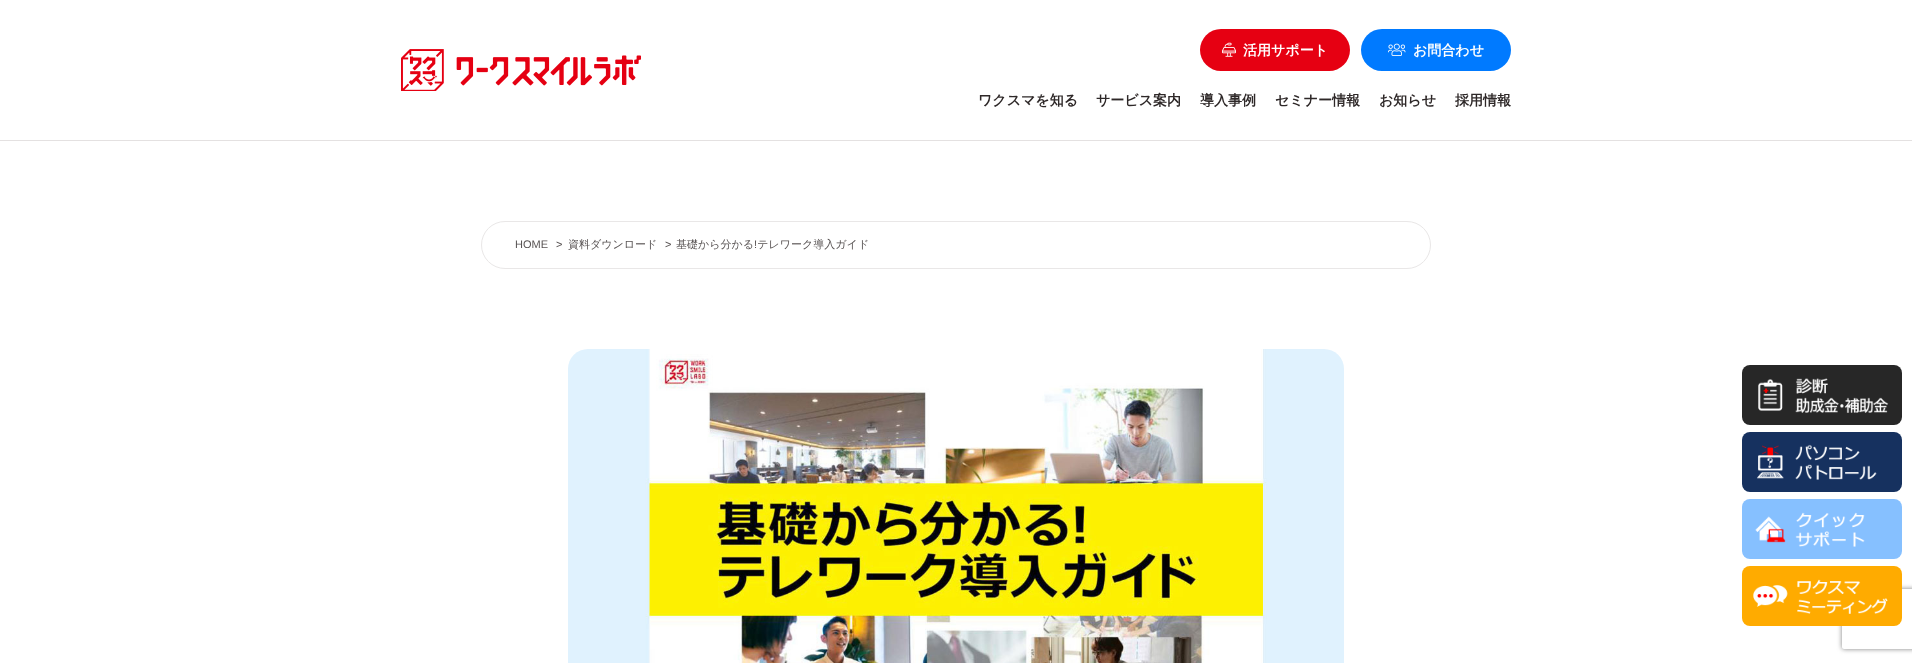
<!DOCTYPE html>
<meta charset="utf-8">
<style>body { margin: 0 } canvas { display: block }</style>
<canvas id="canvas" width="1912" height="663"></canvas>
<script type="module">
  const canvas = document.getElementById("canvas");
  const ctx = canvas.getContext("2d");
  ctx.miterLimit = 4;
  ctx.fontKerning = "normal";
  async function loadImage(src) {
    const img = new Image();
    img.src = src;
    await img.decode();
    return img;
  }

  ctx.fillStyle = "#ffffff";
  ctx.fillRect(0, 0, 1912, 663);
  ctx.fillStyle = "#e4e1e1";
  ctx.fillRect(0, 140, 1912, 1);
  ctx.drawImage(await loadImage("img1.png"), 401, 49, 240, 42);
  ctx.fillStyle = "#e60012";
  ctx.beginPath();
  ctx.roundRect(1200, 29, 150, 42, 21);
  ctx.fill();
  ctx.drawImage(await loadImage("img2.png"), 1222, 42, 14, 15);
  ctx.font = "bold 14px WenQuanYi Zen Hei";
  ctx.fillStyle = "#ffffff";
  ctx.fillText("活用サポート", 1243, 55);
  ctx.fillStyle = "#007aff";
  ctx.beginPath();
  ctx.roundRect(1361, 29, 150, 42, 21);
  ctx.fill();
  ctx.drawImage(await loadImage("img3.png"), 1388, 43, 18, 13);
  ctx.fillStyle = "#ffffff";
  ctx.fillText("お問合わせ", 1413, 55);
  ctx.fillStyle = "#2e2828";
  ctx.fillText("ワクスマを知る", 978, 105);
  ctx.fillText("サービス案内", 1096, 105);
  ctx.fillText("導入事例", 1200, 105);
  ctx.fillText("セミナー情報", 1275, 105);
  ctx.fillText("お知らせ", 1379, 105);
  ctx.fillText("採用情報", 1455, 105);
  ctx.beginPath();
  ctx.roundRect(481.5, 221.5, 949, 47, 23.5);
  ctx.strokeStyle = "#e9e7e7";
  ctx.stroke();
  ctx.font = "11px Liberation Sans";
  ctx.fillStyle = "#585353";
  ctx.fillText("HOME", 515, 248);
  ctx.fillText(">", 556, 248);
  ctx.font = "500 11px WenQuanYi Zen Hei";
  ctx.fillText("資料ダウンロード", 568, 248);
  ctx.fillText("基礎から分かる テレワーク導入ガイド", 676, 248);
  ctx.font = "11px Liberation Sans";
  ctx.fillText(">", 665, 248);
  ctx.fillText("!", 754, 248);
  ctx.drawImage(await loadImage("img4.png"), 568, 349, 776, 314);
  ctx.drawImage(await loadImage("img5.png"), 1742, 365, 160, 60);
  ctx.drawImage(await loadImage("img6.png"), 1742, 432, 160, 60);
  ctx.drawImage(await loadImage("img7.png"), 1742, 499, 160, 60);
  ctx.save();
  ctx.beginPath();
  ctx.moveTo(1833, 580);
  ctx.lineTo(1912, 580);
  ctx.lineTo(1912, 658);
  ctx.lineTo(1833, 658);
  ctx.closePath();
  ctx.moveTo(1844, 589);
  ctx.lineTo(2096, 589);
  ctx.bezierCurveTo(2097, 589, 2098, 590, 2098, 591);
  ctx.lineTo(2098, 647);
  ctx.bezierCurveTo(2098, 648, 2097, 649, 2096, 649);
  ctx.lineTo(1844, 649);
  ctx.bezierCurveTo(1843, 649, 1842, 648, 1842, 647);
  ctx.lineTo(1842, 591);
  ctx.bezierCurveTo(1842, 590, 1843, 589, 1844, 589);
  ctx.closePath();
  ctx.clip("evenodd");
  ctx.fillStyle = "#808080";
  ctx.filter = "blur(2.5px)";
  ctx.beginPath();
  ctx.roundRect(1842, 589, 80, 60, 2);
  ctx.fill();
  ctx.filter = "none";
  ctx.restore();
  ctx.drawImage(await loadImage("img8.png"), 1742, 566, 160, 60);
</script>
